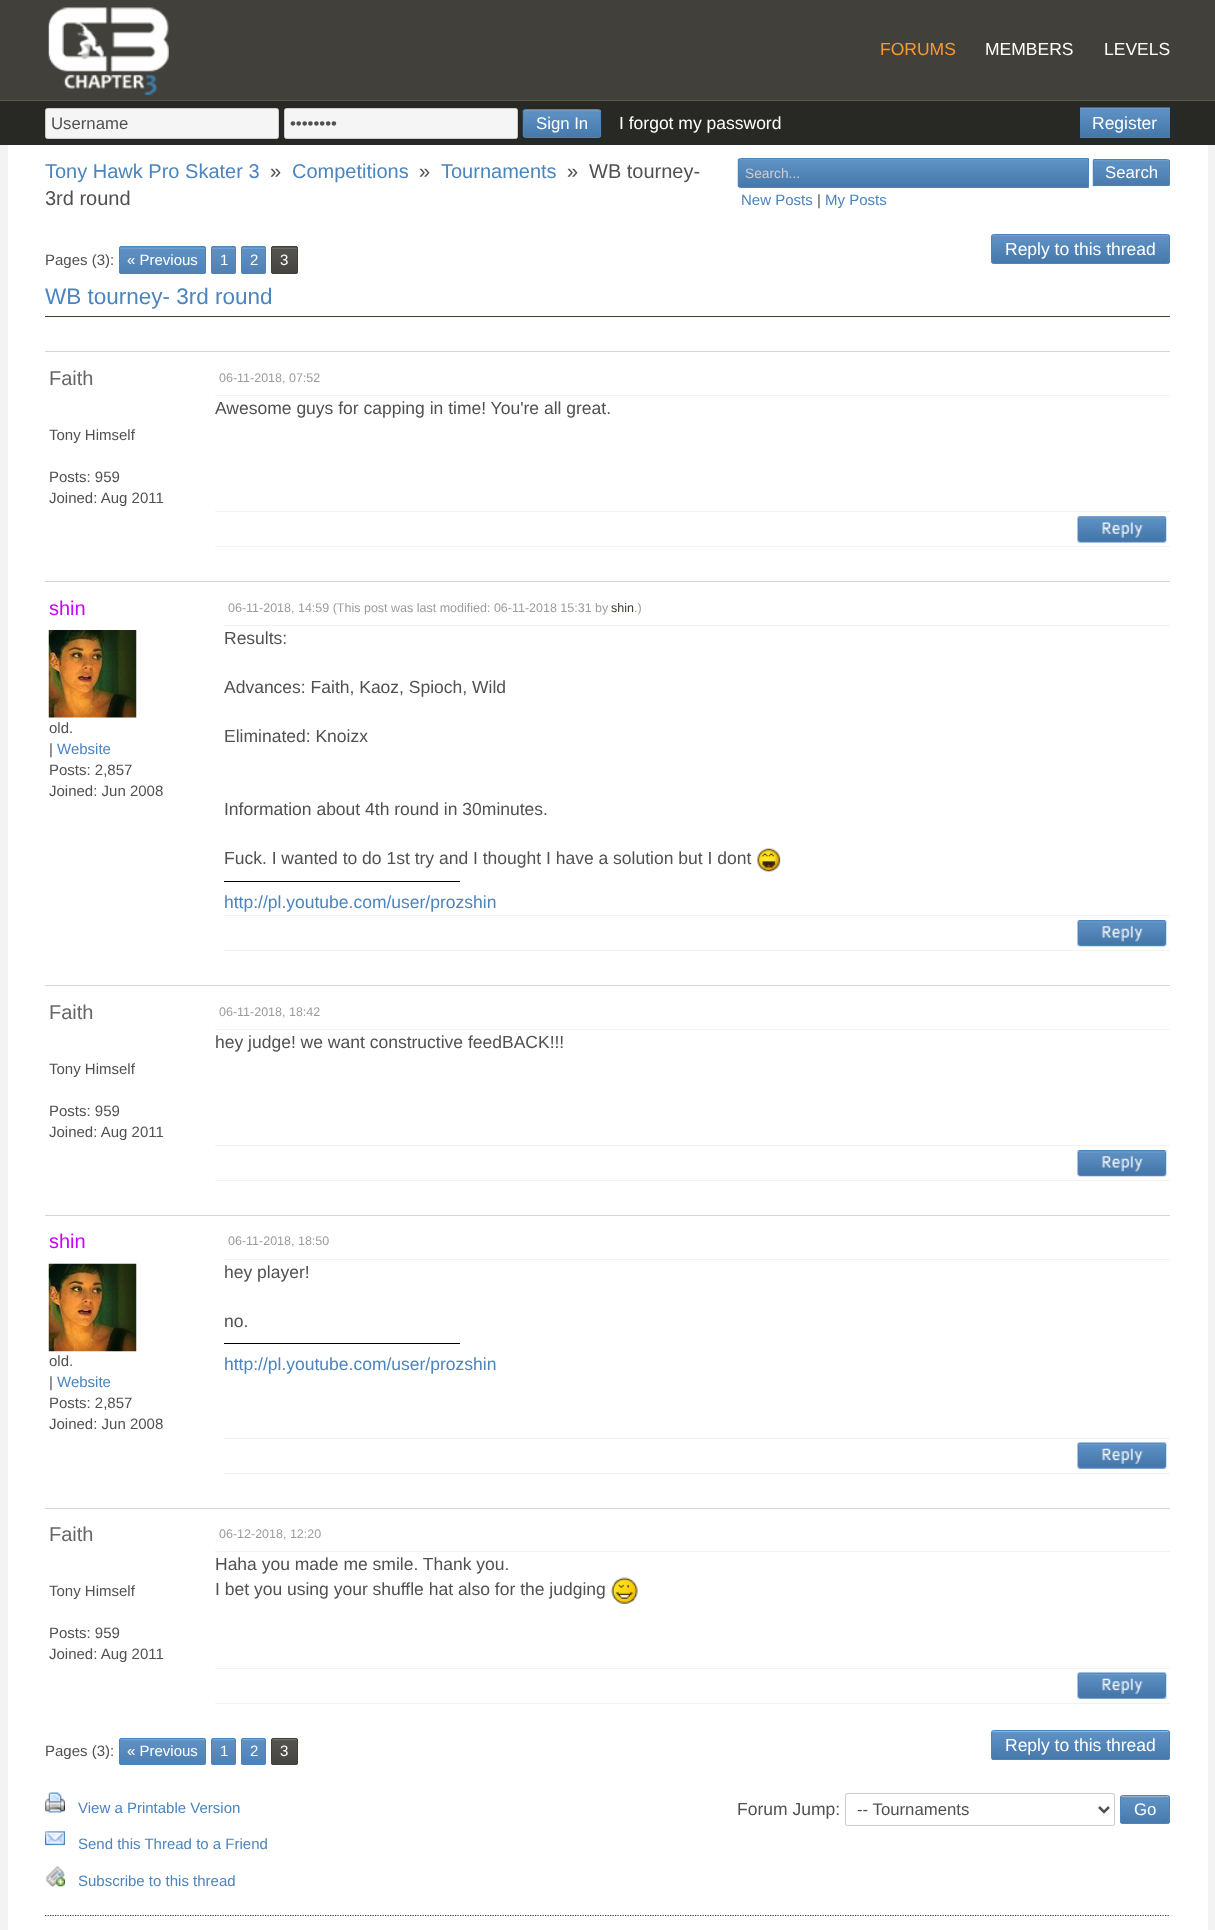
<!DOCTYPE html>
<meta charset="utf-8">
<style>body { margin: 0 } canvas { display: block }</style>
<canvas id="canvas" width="1215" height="1930"></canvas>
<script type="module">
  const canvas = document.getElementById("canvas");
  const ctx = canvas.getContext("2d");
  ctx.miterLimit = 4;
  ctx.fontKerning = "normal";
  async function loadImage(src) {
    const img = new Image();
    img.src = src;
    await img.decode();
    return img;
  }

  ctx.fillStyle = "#f3f3f3";
  ctx.fillRect(0, 0, 1215, 1930);
  ctx.fillStyle = "#41403b";
  ctx.fillRect(0, 0, 1215, 100);
  ctx.drawImage(await loadImage("img1.png"), 48, 7, 121, 89);
  ctx.font = "17.5px Liberation Sans";
  ctx.fillStyle = "#fb992e";
  ctx.fillText("FORUMS", 880, 55);
  ctx.fillStyle = "#ffffff";
  ctx.fillText("MEMBERS", 985, 55);
  ctx.fillText("LEVELS", 1104, 55);
  ctx.fillStyle = "#282924";
  ctx.fillRect(0, 101, 1215, 44);
  ctx.fillStyle = "#5a5c46";
  ctx.fillRect(0, 100, 1215, 1);
  ctx.fillStyle = "#f5f5f5";
  ctx.beginPath();
  ctx.roundRect(45.5, 108.5, 233, 30, 2);
  ctx.fill();
  ctx.strokeStyle = "#cccccc";
  ctx.stroke();
  ctx.font = "16.75px Liberation Sans";
  ctx.fillStyle = "#515151";
  ctx.fillText("Username", 51, 129);
  ctx.fillStyle = "#f5f5f5";
  ctx.beginPath();
  ctx.roundRect(284.5, 108.5, 233, 30, 2);
  ctx.fill();
  ctx.stroke();
  ctx.fillStyle = "#515151";
  ctx.fillText("••••••••", 290, 129);
  ctx.drawImage(await loadImage("img2.png"), 522, 110, 80, 28);
  ctx.beginPath();
  ctx.roundRect(523.5, 109.5, 77, 28, 2);
  ctx.strokeStyle = "#4c84bd";
  ctx.stroke();
  ctx.fillStyle = "#ffffff";
  ctx.fillText("Sign In", 536, 129);
  ctx.font = "17.5px Liberation Sans";
  ctx.fillText("I forgot my password", 619, 129);
  ctx.fillStyle = "#4c84bd";
  ctx.fillRect(1080, 137, 90, 1);
  ctx.drawImage(await loadImage("img3.png"), 1080, 107, 90, 31);
  ctx.fillStyle = "#ffffff";
  ctx.fillText("Register", 1092, 129);
  ctx.fillRect(8, 145, 1200, 1785);
  ctx.font = "20px Liberation Sans";
  ctx.fillStyle = "#4c84bd";
  ctx.fillText("Tony Hawk Pro Skater 3", 45, 178);
  ctx.fillStyle = "#515151";
  ctx.fillText("»", 270, 178);
  ctx.fillStyle = "#4c84bd";
  ctx.fillText("Competitions", 292, 178);
  ctx.fillStyle = "#515151";
  ctx.fillText("»", 419, 178);
  ctx.fillStyle = "#4c84bd";
  ctx.fillText("Tournaments", 441, 178);
  ctx.fillStyle = "#515151";
  ctx.fillText("»", 567, 178);
  ctx.fillText("WB tourney-", 589, 178);
  ctx.fillText("3rd round", 45, 205);
  ctx.drawImage(await loadImage("img4.png"), 737, 158, 351, 30);
  ctx.beginPath();
  ctx.roundRect(738.5, 158.5, 350, 29, [2, 0, 0, 2]);
  ctx.stroke();
  ctx.font = "13.75px Liberation Sans";
  ctx.fillStyle = "#cccccc";
  ctx.fillText("Search...", 745, 178);
  ctx.drawImage(await loadImage("img5.png"), 1092, 160, 78, 27);
  ctx.beginPath();
  ctx.roundRect(1093.5, 159.5, 76, 26, [0, 2, 2, 0]);
  ctx.stroke();
  ctx.font = "16.75px Liberation Sans";
  ctx.fillStyle = "#ffffff";
  ctx.fillText("Search", 1105, 178);
  ctx.font = "15px Liberation Sans";
  ctx.fillStyle = "#4c84bd";
  ctx.fillText("New Posts", 741, 205);
  ctx.fillStyle = "#515151";
  ctx.fillText("|", 817, 205);
  ctx.fillStyle = "#4c84bd";
  ctx.fillText("My Posts", 825, 205);
  ctx.drawImage(await loadImage("img6.png"), 991, 235, 179, 29);
  ctx.beginPath();
  ctx.roundRect(991.5, 234.5, 178, 29, 2);
  ctx.stroke();
  ctx.font = "17.5px Liberation Sans";
  ctx.fillStyle = "#ffffff";
  ctx.fillText("Reply to this thread", 1005, 255);
  ctx.font = "15px Liberation Sans";
  ctx.fillStyle = "#515151";
  ctx.fillText("Pages (3):", 45, 265);
  ctx.fillStyle = "#4c84bd";
  ctx.beginPath();
  ctx.roundRect(119, 246, 87, 28, 2.5);
  ctx.fill();
  ctx.drawImage(await loadImage("img7.png"), 119, 247, 87, 27);
  ctx.beginPath();
  ctx.roundRect(211, 246, 25, 28, 2.5);
  ctx.fill();
  ctx.drawImage(await loadImage("img8.png"), 211, 247, 25, 27);
  ctx.beginPath();
  ctx.roundRect(241, 246, 25, 28, 2.5);
  ctx.fill();
  ctx.drawImage(await loadImage("img8.png"), 241, 247, 25, 27);
  ctx.fillStyle = "#41403b";
  ctx.beginPath();
  ctx.roundRect(271, 246, 27, 28, 2.5);
  ctx.fill();
  ctx.drawImage(await loadImage("img9.png"), 271, 247, 27, 26);
  ctx.beginPath();
  ctx.roundRect(119.5, 246.5, 86, 27, 2);
  ctx.stroke();
  ctx.fillStyle = "#ffffff";
  ctx.fillText("« Previous", 127, 265);
  ctx.beginPath();
  ctx.roundRect(211.5, 246.5, 24, 27, 2);
  ctx.stroke();
  ctx.fillText("1", 220, 265);
  ctx.beginPath();
  ctx.roundRect(241.5, 246.5, 24, 27, 2);
  ctx.stroke();
  ctx.fillText("2", 250, 265);
  ctx.beginPath();
  ctx.roundRect(271.5, 246.5, 26, 27, 2);
  ctx.strokeStyle = "#41403b";
  ctx.stroke();
  ctx.fillText("3", 280, 265);
  ctx.fillStyle = "#3c3e30";
  ctx.fillRect(45, 316, 1125, 1);
  ctx.font = "22.5px Liberation Sans";
  ctx.fillStyle = "#4c84bd";
  ctx.fillText("WB tourney- 3rd round", 45, 304);
  ctx.fillStyle = "#d5d5d5";
  ctx.fillRect(45, 351, 1125, 1);
  ctx.font = "20px Liberation Sans";
  ctx.fillStyle = "#666666";
  ctx.fillText("Faith", 49, 385);
  ctx.fillStyle = "#f3f3f3";
  ctx.fillRect(215, 395, 955, 1);
  ctx.font = "12.5px Liberation Sans";
  ctx.fillStyle = "#9c9c9c";
  ctx.fillText("06-11-2018, 07:52", 219, 382);
  ctx.fillStyle = "#f3f3f3";
  ctx.fillRect(215, 511, 955, 1);
  ctx.font = "17.5px Liberation Sans";
  ctx.fillStyle = "#515151";
  ctx.fillText("Awesome guys for capping in time! You're all great.", 215, 414);
  ctx.font = "15px Liberation Sans";
  ctx.fillText("Tony Himself", 49, 440);
  ctx.fillText("Posts: 959", 49, 482);
  ctx.fillText("Joined: Aug 2011", 49, 503);
  ctx.fillStyle = "#f3f3f3";
  ctx.fillRect(215, 546, 955, 1);
  ctx.drawImage(await loadImage("img10.png"), 1077, 516, 90, 27);
  ctx.fillStyle = "#d5d5d5";
  ctx.fillRect(45, 581, 1125, 1);
  ctx.font = "20px Liberation Sans";
  ctx.fillStyle = "#cc00ff";
  ctx.fillText("shin", 49, 615);
  ctx.fillStyle = "#f3f3f3";
  ctx.fillRect(224, 625, 946, 1);
  ctx.font = "12.5px Liberation Sans";
  ctx.fillStyle = "#9c9c9c";
  ctx.fillText("06-11-2018, 14:59 (This post was last modified: 06-11-2018 15:31 by", 228, 612);
  ctx.fillStyle = "#3c3e30";
  ctx.fillText("shin", 611, 612);
  ctx.fillStyle = "#9c9c9c";
  ctx.fillText(".)", 634, 612);
  ctx.drawImage(await loadImage("img11.png"), 48, 630, 89, 88);
  ctx.font = "15px Liberation Sans";
  ctx.fillStyle = "#515151";
  ctx.fillText("old.", 49, 733);
  ctx.fillText("|", 49, 754);
  ctx.fillStyle = "#4c84bd";
  ctx.fillText("Website", 57, 754);
  ctx.fillStyle = "#515151";
  ctx.fillText("Posts: 2,857", 49, 775);
  ctx.fillText("Joined: Jun 2008", 49, 796);
  ctx.fillStyle = "#f3f3f3";
  ctx.fillRect(224, 915, 946, 1);
  ctx.font = "17.5px Liberation Sans";
  ctx.fillStyle = "#515151";
  ctx.fillText("Results:", 224, 644);
  ctx.fillText("Advances: Faith, Kaoz, Spioch, Wild", 224, 693);
  ctx.fillText("Eliminated: Knoizx", 224, 742);
  ctx.fillText("Information about 4th round in 30minutes.", 224, 815);
  ctx.fillText("Fuck. I wanted to do 1st try and I thought I have a solution but I dont", 224, 864);
  ctx.drawImage(await loadImage("img12.png"), 757, 848, 24, 24);
  ctx.fillStyle = "#000000";
  ctx.fillRect(224, 881, 236, 1);
  ctx.fillStyle = "#4c84bd";
  ctx.fillText("http://pl.youtube.com/user/prozshin", 224, 908);
  ctx.fillStyle = "#f3f3f3";
  ctx.fillRect(224, 950, 946, 1);
  ctx.drawImage(await loadImage("img13.png"), 1077, 920, 90, 27);
  ctx.fillStyle = "#d5d5d5";
  ctx.fillRect(45, 985, 1125, 1);
  ctx.font = "20px Liberation Sans";
  ctx.fillStyle = "#666666";
  ctx.fillText("Faith", 49, 1019);
  ctx.fillStyle = "#f3f3f3";
  ctx.fillRect(215, 1029, 955, 1);
  ctx.font = "12.5px Liberation Sans";
  ctx.fillStyle = "#9c9c9c";
  ctx.fillText("06-11-2018, 18:42", 219, 1016);
  ctx.fillStyle = "#f3f3f3";
  ctx.fillRect(215, 1145, 955, 1);
  ctx.font = "17.5px Liberation Sans";
  ctx.fillStyle = "#515151";
  ctx.fillText("hey judge! we want constructive feedBACK!!!", 215, 1048);
  ctx.font = "15px Liberation Sans";
  ctx.fillText("Tony Himself", 49, 1074);
  ctx.fillText("Posts: 959", 49, 1116);
  ctx.fillText("Joined: Aug 2011", 49, 1137);
  ctx.fillStyle = "#f3f3f3";
  ctx.fillRect(215, 1180, 955, 1);
  ctx.drawImage(await loadImage("img13.png"), 1077, 1150, 90, 27);
  ctx.fillStyle = "#d5d5d5";
  ctx.fillRect(45, 1215, 1125, 1);
  ctx.font = "20px Liberation Sans";
  ctx.fillStyle = "#cc00ff";
  ctx.fillText("shin", 49, 1248);
  ctx.fillStyle = "#f3f3f3";
  ctx.fillRect(224, 1259, 946, 1);
  ctx.font = "12.5px Liberation Sans";
  ctx.fillStyle = "#9c9c9c";
  ctx.fillText("06-11-2018, 18:50", 228, 1245);
  ctx.fillStyle = "#f3f3f3";
  ctx.fillRect(224, 1438, 946, 1);
  ctx.font = "17.5px Liberation Sans";
  ctx.fillStyle = "#515151";
  ctx.fillText("hey player!", 224, 1278);
  ctx.fillText("no.", 224, 1327);
  ctx.fillStyle = "#000000";
  ctx.fillRect(224, 1343, 236, 1);
  ctx.fillStyle = "#4c84bd";
  ctx.fillText("http://pl.youtube.com/user/prozshin", 224, 1370);
  ctx.drawImage(await loadImage("img14.png"), 48, 1263, 89, 89);
  ctx.font = "15px Liberation Sans";
  ctx.fillStyle = "#515151";
  ctx.fillText("old.", 49, 1366);
  ctx.fillText("|", 49, 1387);
  ctx.fillStyle = "#4c84bd";
  ctx.fillText("Website", 57, 1387);
  ctx.fillStyle = "#515151";
  ctx.fillText("Posts: 2,857", 49, 1408);
  ctx.fillText("Joined: Jun 2008", 49, 1429);
  ctx.fillStyle = "#f3f3f3";
  ctx.fillRect(224, 1473, 946, 1);
  ctx.drawImage(await loadImage("img15.png"), 1077, 1442, 90, 27);
  ctx.fillStyle = "#d5d5d5";
  ctx.fillRect(45, 1508, 1125, 1);
  ctx.font = "20px Liberation Sans";
  ctx.fillStyle = "#666666";
  ctx.fillText("Faith", 49, 1541);
  ctx.fillStyle = "#f3f3f3";
  ctx.fillRect(215, 1551, 955, 1);
  ctx.font = "12.5px Liberation Sans";
  ctx.fillStyle = "#9c9c9c";
  ctx.fillText("06-12-2018, 12:20", 219, 1538);
  ctx.fillStyle = "#f3f3f3";
  ctx.fillRect(215, 1668, 955, 1);
  ctx.font = "17.5px Liberation Sans";
  ctx.fillStyle = "#515151";
  ctx.fillText("Haha you made me smile. Thank you.", 215, 1570);
  ctx.fillText("I bet you using your shuffle hat also for the judging", 215, 1595);
  ctx.drawImage(await loadImage("img16.png"), 611, 1577, 27, 27);
  ctx.font = "15px Liberation Sans";
  ctx.fillText("Tony Himself", 49, 1596);
  ctx.fillText("Posts: 959", 49, 1638);
  ctx.fillText("Joined: Aug 2011", 49, 1659);
  ctx.fillStyle = "#f3f3f3";
  ctx.fillRect(215, 1703, 955, 1);
  ctx.drawImage(await loadImage("img15.png"), 1077, 1672, 90, 27);
  ctx.fillStyle = "#515151";
  ctx.fillText("Pages (3):", 45, 1756);
  ctx.fillStyle = "#4c84bd";
  ctx.beginPath();
  ctx.roundRect(119, 1738, 87, 27, 2.5);
  ctx.fill();
  ctx.drawImage(await loadImage("img17.png"), 119, 1738, 87, 27);
  ctx.beginPath();
  ctx.roundRect(211, 1738, 25, 27, 2.5);
  ctx.fill();
  ctx.drawImage(await loadImage("img18.png"), 211, 1738, 25, 27);
  ctx.beginPath();
  ctx.roundRect(241, 1738, 25, 27, 2.5);
  ctx.fill();
  ctx.drawImage(await loadImage("img18.png"), 241, 1738, 25, 27);
  ctx.fillStyle = "#41403b";
  ctx.beginPath();
  ctx.roundRect(271, 1738, 27, 27, 2.5);
  ctx.fill();
  ctx.drawImage(await loadImage("img19.png"), 271, 1737, 27, 28);
  ctx.beginPath();
  ctx.roundRect(119.5, 1738.5, 86, 26, 2);
  ctx.strokeStyle = "#4c84bd";
  ctx.stroke();
  ctx.fillStyle = "#ffffff";
  ctx.fillText("« Previous", 127, 1756);
  ctx.beginPath();
  ctx.roundRect(211.5, 1738.5, 24, 26, 2);
  ctx.stroke();
  ctx.fillText("1", 220, 1756);
  ctx.beginPath();
  ctx.roundRect(241.5, 1738.5, 24, 26, 2);
  ctx.stroke();
  ctx.fillText("2", 250, 1756);
  ctx.beginPath();
  ctx.roundRect(271.5, 1738.5, 26, 26, 2);
  ctx.strokeStyle = "#41403b";
  ctx.stroke();
  ctx.fillText("3", 280, 1756);
  ctx.drawImage(await loadImage("img20.png"), 991, 1731, 179, 29);
  ctx.beginPath();
  ctx.roundRect(991.5, 1730.5, 178, 29, 2);
  ctx.strokeStyle = "#4c84bd";
  ctx.stroke();
  ctx.font = "17.5px Liberation Sans";
  ctx.fillText("Reply to this thread", 1005, 1751);
  ctx.drawImage(await loadImage("img21.png"), 45, 1792, 20, 21);
  ctx.font = "15px Liberation Sans";
  ctx.fillStyle = "#4c84bd";
  ctx.fillText("View a Printable Version", 78, 1813);
  ctx.drawImage(await loadImage("img22.png"), 45, 1831, 20, 15);
  ctx.fillText("Send this Thread to a Friend", 78, 1849);
  ctx.drawImage(await loadImage("img23.png"), 46, 1866, 19, 21);
  ctx.fillText("Subscribe to this thread", 78, 1886);
  ctx.font = "17.5px Liberation Sans";
  ctx.fillStyle = "#515151";
  ctx.fillText("Forum Jump:", 737, 1815);
  ctx.beginPath();
  ctx.roundRect(845.5, 1793.5, 269, 32, 2);
  ctx.strokeStyle = "#cccccc";
  ctx.stroke();
  ctx.beginPath();
  ctx.moveTo(1099, 1807);
  ctx.lineTo(1104, 1812);
  ctx.lineTo(1109, 1807);
  ctx.strokeStyle = "#515151";
  ctx.lineWidth = 2.5;
  ctx.stroke();
  ctx.font = "16.75px Liberation Sans";
  ctx.fillText("-- Tournaments", 857, 1815);
  ctx.drawImage(await loadImage("img24.png"), 1120, 1796, 50, 28);
  ctx.beginPath();
  ctx.roundRect(1120.5, 1795.5, 49, 28, 2);
  ctx.strokeStyle = "#4c84bd";
  ctx.lineWidth = 1;
  ctx.stroke();
  ctx.fillStyle = "#ffffff";
  ctx.fillText("Go", 1134, 1815);
  ctx.beginPath();
  ctx.moveTo(45, 1915.5);
  ctx.lineTo(1170, 1915.5);
  ctx.strokeStyle = "#41403b";
  ctx.lineWidth = 1.2;
  ctx.setLineDash([1.25, 1.25]);
  ctx.stroke();
</script>
